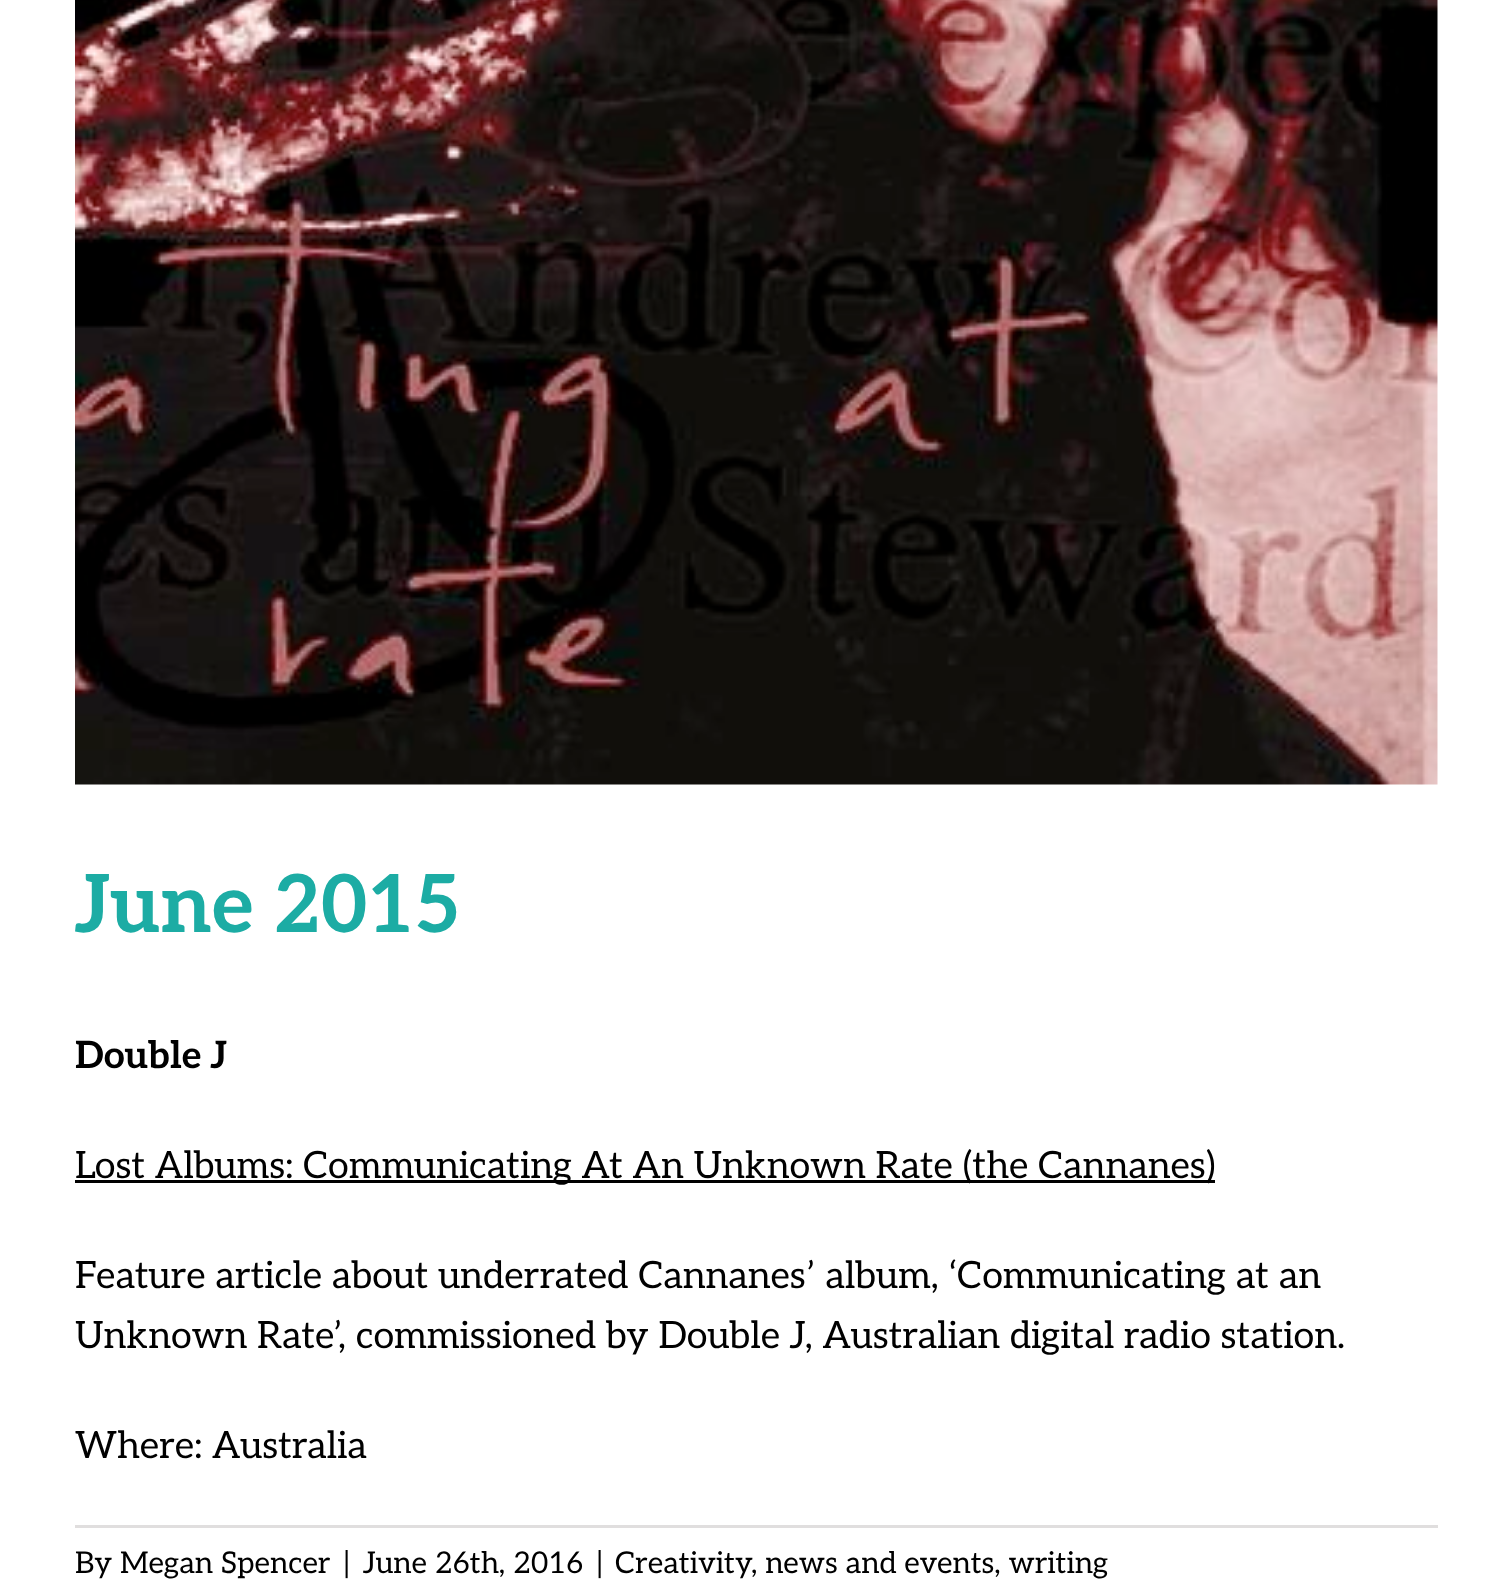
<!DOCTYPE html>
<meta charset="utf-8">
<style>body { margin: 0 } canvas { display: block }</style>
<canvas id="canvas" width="1511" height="1581"></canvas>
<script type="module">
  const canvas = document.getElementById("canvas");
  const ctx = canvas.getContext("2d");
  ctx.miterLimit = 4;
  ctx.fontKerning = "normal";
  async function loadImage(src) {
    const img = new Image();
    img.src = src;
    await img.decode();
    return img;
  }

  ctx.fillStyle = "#ffffff";
  ctx.fillRect(0, 0, 1511, 1581);
  ctx.drawImage(await loadImage("img1.png"), 75, 0, 1363, 785);
  ctx.font = "bold 80px Aleo";
  ctx.fillStyle = "#1caca4";
  ctx.fillText("June 2015", 75, 932);
  ctx.font = "bold 37.5px Aleo";
  ctx.fillStyle = "#000000";
  ctx.fillText("Double J", 75, 1068);
  ctx.fillRect(75, 1180, 1140, 3);
  ctx.font = "37.5px Aleo";
  ctx.fillText("Lost Albums: Communicating At An Unknown Rate (the Cannanes)", 75, 1178);
  ctx.fillText("Feature article about underrated Cannanes’ album, ‘Communicating at an", 75, 1288);
  ctx.fillText("Unknown Rate’, commissioned by Double J, Australian digital radio station.", 75, 1348);
  ctx.fillText("Where: Australia", 75, 1458);
  ctx.fillStyle = "#e0dede";
  ctx.fillRect(75, 1525, 1363, 3);
  ctx.font = "30px Aleo";
  ctx.fillStyle = "#000000";
  ctx.fillText("By Megan Spencer", 75, 1573);
  ctx.fillText("|", 343, 1573);
  ctx.fillText("June 26th, 2016", 363, 1573);
  ctx.fillText("|", 596, 1573);
  ctx.fillText("Creativity", 615, 1573);
  ctx.fillText(", news and events, writing", 751, 1573);
</script>
